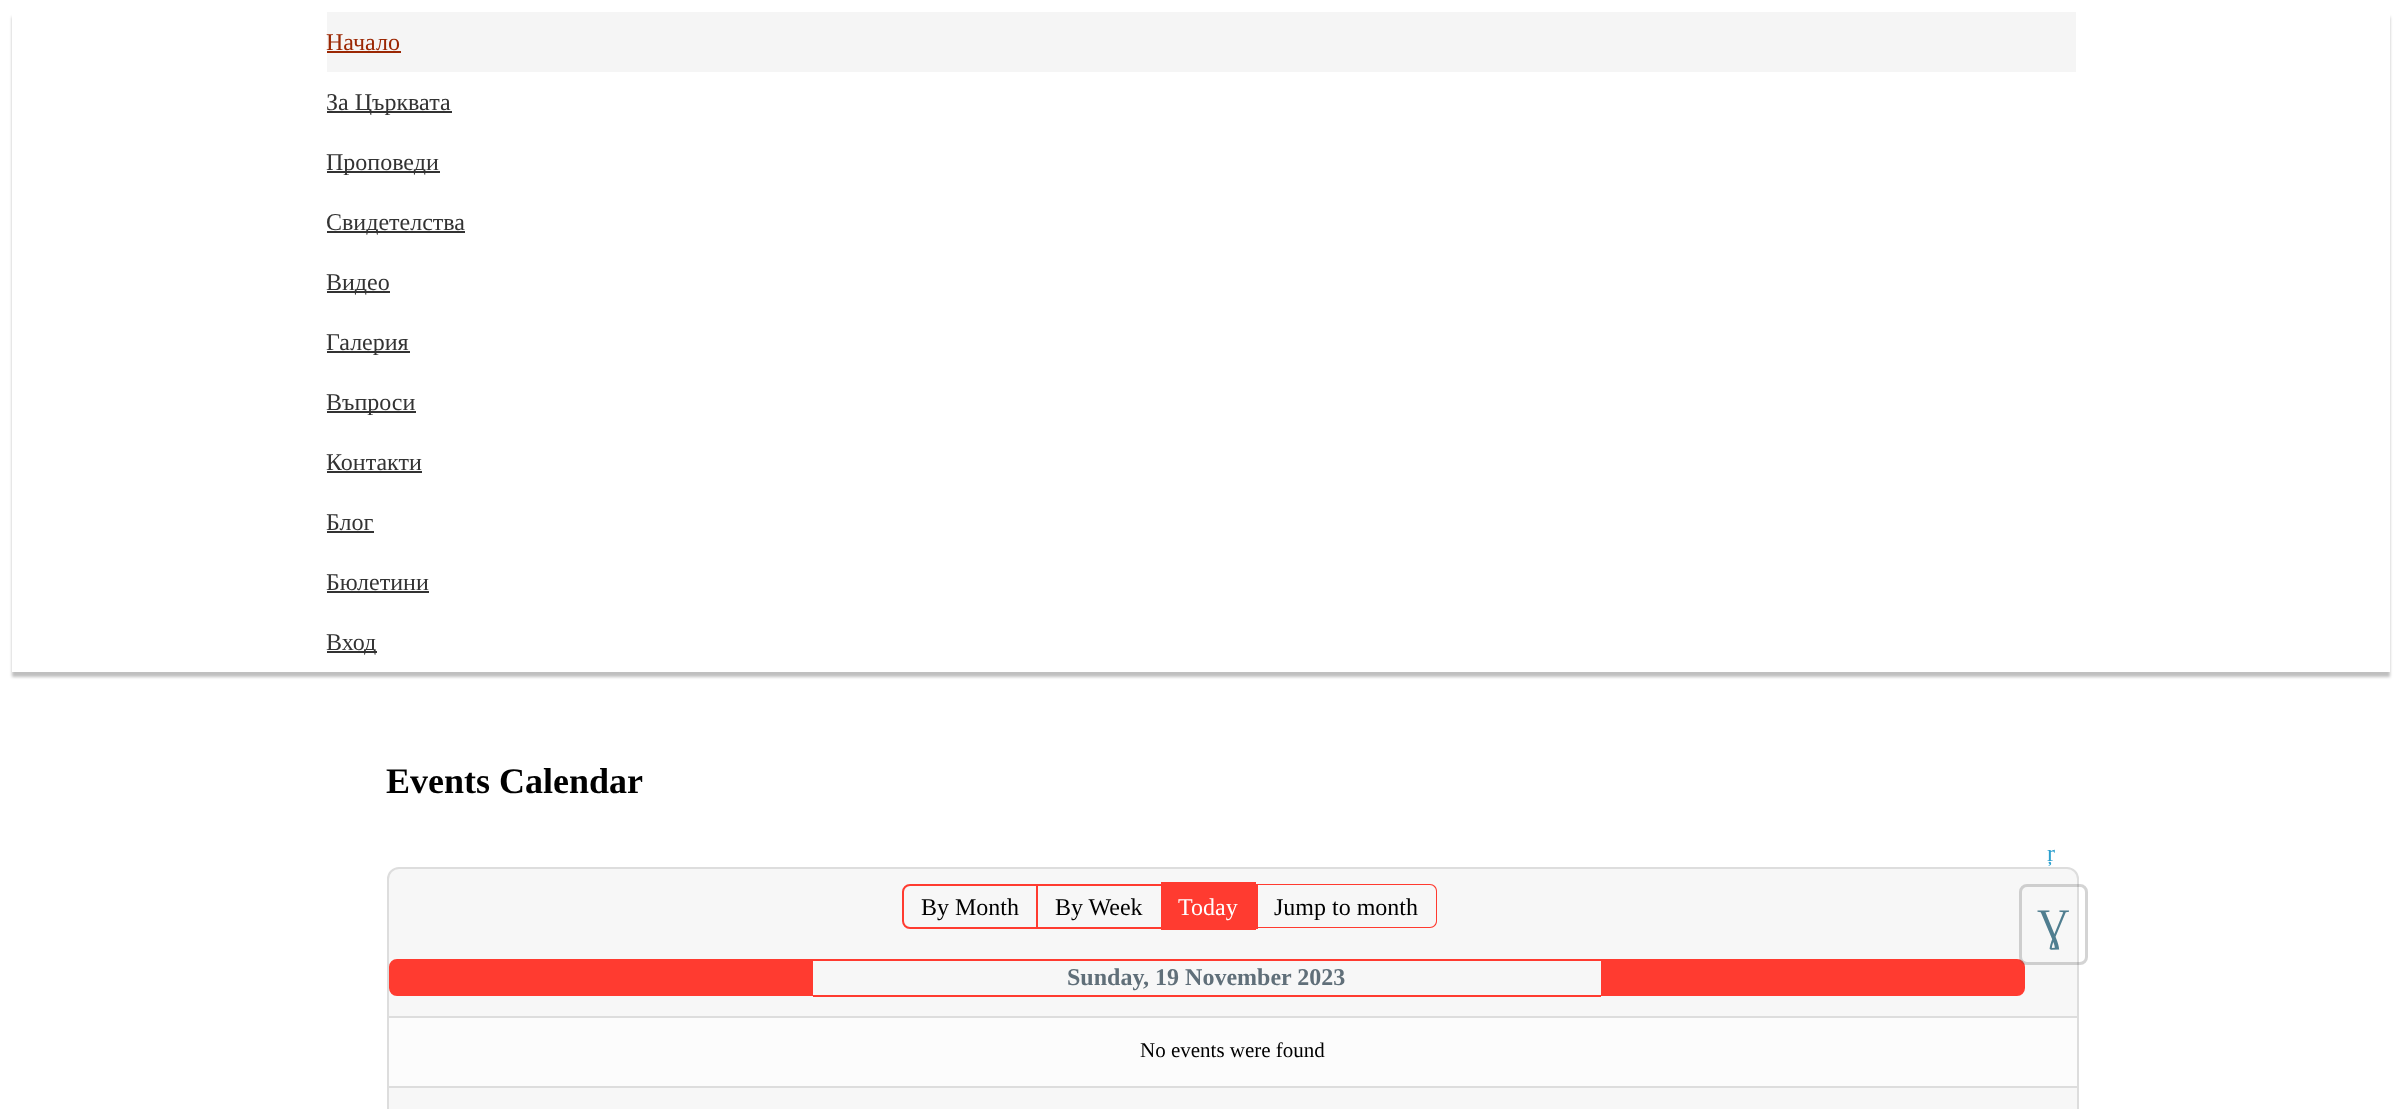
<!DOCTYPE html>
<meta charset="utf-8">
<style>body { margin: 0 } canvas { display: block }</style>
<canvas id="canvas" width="2401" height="1109"></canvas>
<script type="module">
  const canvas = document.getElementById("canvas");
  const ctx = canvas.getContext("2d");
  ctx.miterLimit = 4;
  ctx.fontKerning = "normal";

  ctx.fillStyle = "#ffffff";
  ctx.fillRect(0, 0, 2401, 1109);
  ctx.fillStyle = "rgba(0, 0, 0, 0.25)";
  ctx.filter = "blur(1.5px)";
  ctx.beginPath();
  ctx.rect(12, 17, 2378, 660);
  ctx.fill();
  ctx.filter = "none";
  ctx.fillStyle = "#ffffff";
  ctx.fillRect(12, 14, 2378, 658);
  ctx.fillStyle = "#f5f5f5";
  ctx.fillRect(327, 12, 1749, 60);
  ctx.font = "24px Liberation Serif";
  ctx.fillStyle = "#9b2703";
  ctx.fillText("Начало", 326, 50);
  ctx.fillRect(327, 51, 74, 2);
  ctx.fillStyle = "#333333";
  ctx.fillRect(327, 111, 125, 2);
  ctx.fillText("За Църквата", 326, 110);
  ctx.fillRect(327, 171, 113, 2);
  ctx.fillText("Проповеди", 326, 170);
  ctx.fillRect(327, 231, 138, 2);
  ctx.fillText("Свидетелства", 326, 230);
  ctx.fillRect(327, 291, 63, 2);
  ctx.fillText("Видео", 326, 290);
  ctx.fillRect(327, 351, 83, 2);
  ctx.fillText("Галерия", 326, 350);
  ctx.fillRect(327, 411, 89, 2);
  ctx.fillText("Въпроси", 326, 410);
  ctx.fillText("Контакти", 326, 470);
  ctx.fillRect(327, 471, 95, 2);
  ctx.fillText("Блог", 326, 530);
  ctx.fillRect(327, 531, 47, 2);
  ctx.fillText("Бюлетини", 326, 590);
  ctx.fillRect(327, 591, 102, 2);
  ctx.fillRect(327, 651, 50, 2);
  ctx.fillText("Вход", 326, 650);
  ctx.font = "bold 36px Liberation Serif";
  ctx.fillStyle = "#000000";
  ctx.fillText("Events Calendar", 386, 793);
  ctx.font = "24px Liberation Serif";
  ctx.fillStyle = "#2da0ce";
  ctx.fillText("ŗ", 2047, 861);
  ctx.fillStyle = "#f7f7f7";
  ctx.beginPath();
  ctx.roundRect(388, 868, 1690, 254, 11);
  ctx.fill();
  ctx.strokeStyle = "#dddddd";
  ctx.lineWidth = 2;
  ctx.stroke();
  ctx.beginPath();
  ctx.roundRect(903, 885, 134, 43, [7, 0, 0, 7]);
  ctx.strokeStyle = "#ff3b30";
  ctx.stroke();
  ctx.fillStyle = "#000000";
  ctx.fillText("By Month", 921, 915);
  ctx.fillStyle = "#ff3b30";
  ctx.fillRect(1037, 884, 126, 2);
  ctx.fillRect(1037, 927, 126, 2);
  ctx.fillStyle = "#000000";
  ctx.fillText("By Week", 1055, 915);
  ctx.fillStyle = "#ff3b30";
  ctx.fillRect(1256, 884, 2, 45);
  ctx.fillRect(1161, 882, 95, 48);
  ctx.fillStyle = "#ffffff";
  ctx.fillText("Today", 1178, 915);
  ctx.fillStyle = "#ff3b30";
  ctx.beginPath();
  ctx.moveTo(1256, 884);
  ctx.lineTo(1430, 884);
  ctx.bezierCurveTo(1434, 884, 1437, 887, 1437, 891);
  ctx.lineTo(1437, 921);
  ctx.bezierCurveTo(1437, 925, 1434, 928, 1430, 928);
  ctx.lineTo(1256, 928);
  ctx.closePath();
  ctx.moveTo(1256, 885);
  ctx.lineTo(1430, 885);
  ctx.bezierCurveTo(1433, 885, 1436, 888, 1436, 891);
  ctx.lineTo(1436, 921);
  ctx.bezierCurveTo(1436, 924, 1433, 927, 1430, 927);
  ctx.lineTo(1256, 927);
  ctx.closePath();
  ctx.fill("evenodd");
  ctx.fillStyle = "#000000";
  ctx.fillText("Jump to month", 1274, 915);
  ctx.fillStyle = "#ff3b30";
  ctx.beginPath();
  ctx.roundRect(390, 960, 422, 35, [7, 0, 0, 7]);
  ctx.fill();
  ctx.stroke();
  ctx.fillRect(813, 959, 788, 2);
  ctx.fillRect(813, 995, 788, 2);
  ctx.font = "bold 24px Liberation Serif";
  ctx.fillStyle = "#606f79";
  ctx.fillText("Sunday, 19 November 2023", 1067, 985);
  ctx.fillStyle = "#ff3b30";
  ctx.beginPath();
  ctx.roundRect(1602, 960, 422, 35, [0, 7, 7, 0]);
  ctx.fill();
  ctx.stroke();
  ctx.fillStyle = "#fcfcfc";
  ctx.beginPath();
  ctx.rect(388, 1017, 1690, 70);
  ctx.fill();
  ctx.strokeStyle = "#dddddd";
  ctx.stroke();
  ctx.font = "21px Liberation Serif";
  ctx.fillStyle = "#000000";
  ctx.fillText("No events were found", 1140, 1057);
  ctx.beginPath();
  ctx.roundRect(2020.5, 885.5, 66, 78, 6.5);
  ctx.strokeStyle = "rgba(84, 84, 84, 0.25)";
  ctx.lineWidth = 3;
  ctx.stroke();
  ctx.font = "45px Liberation Serif";
  ctx.fillStyle = "#507e90";
  ctx.fillText("Ɣ", 2037, 940);
</script>
